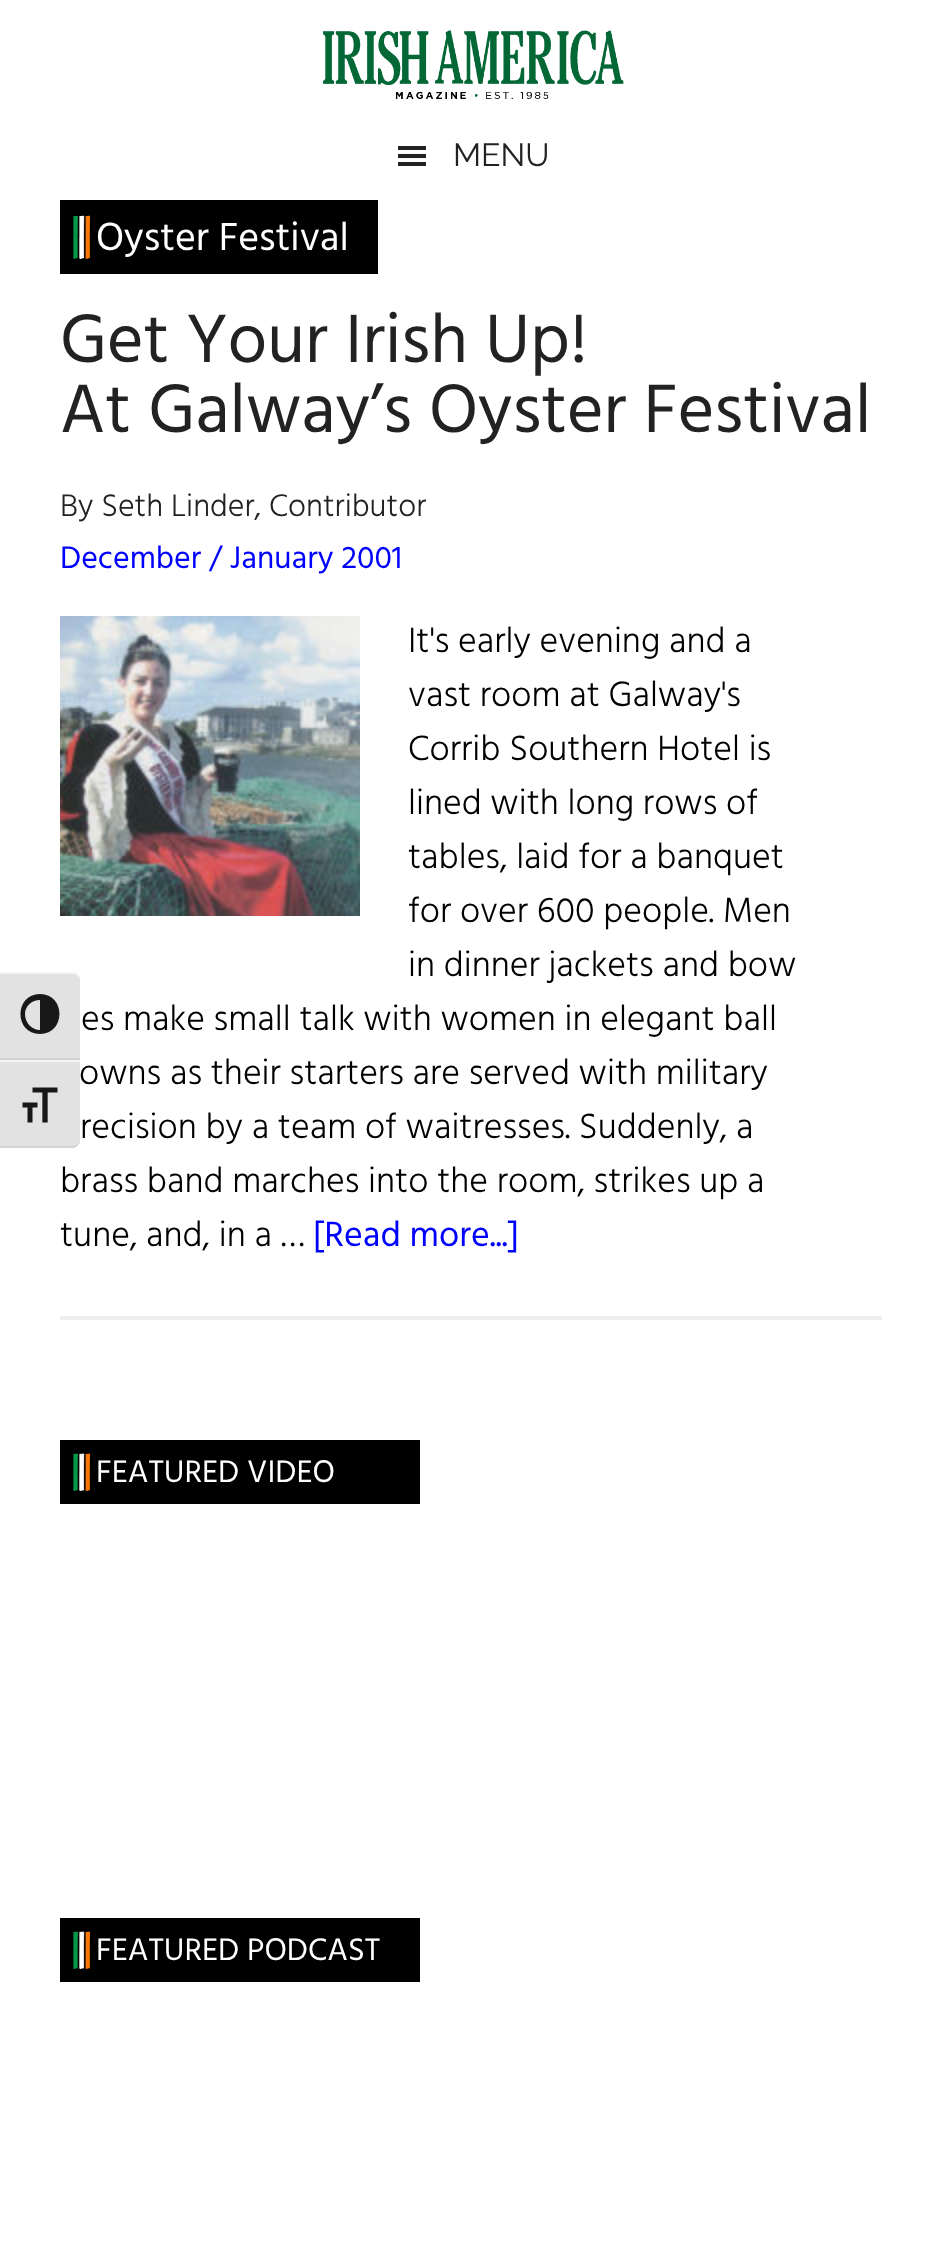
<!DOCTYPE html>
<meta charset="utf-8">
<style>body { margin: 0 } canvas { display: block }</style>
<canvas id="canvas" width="942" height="2259"></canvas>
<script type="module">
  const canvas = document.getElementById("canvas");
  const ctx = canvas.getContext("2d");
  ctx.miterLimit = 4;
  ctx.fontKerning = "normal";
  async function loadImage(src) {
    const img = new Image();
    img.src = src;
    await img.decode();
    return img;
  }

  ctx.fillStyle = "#ffffff";
  ctx.fillRect(0, 0, 942, 2259);
  ctx.fillStyle = "#e2e2e2";
  ctx.beginPath();
  ctx.roundRect(0, 972, 80, 88, [0, 8, 0, 0]);
  ctx.fill();
  ctx.fillStyle = "#f5f5f5";
  ctx.beginPath();
  ctx.moveTo(0, 972);
  ctx.lineTo(0, 974);
  ctx.lineTo(72, 974);
  ctx.bezierCurveTo(76, 974, 80, 977, 80, 980);
  ctx.bezierCurveTo(80, 976, 76, 972, 72, 972);
  ctx.closePath();
  ctx.fill();
  ctx.fillStyle = "#d2d2d2";
  ctx.fillRect(0, 1058, 80, 2);
  ctx.fillStyle = "#181818";
  ctx.beginPath();
  ctx.moveTo(40, 994);
  ctx.bezierCurveTo(14, 994, 14, 1034, 40, 1034);
  ctx.bezierCurveTo(66, 1034, 66, 994, 40, 994);
  ctx.closePath();
  ctx.moveTo(25, 1014);
  ctx.bezierCurveTo(25, 1006, 32, 1000, 40, 1000);
  ctx.lineTo(40, 1030);
  ctx.bezierCurveTo(32, 1030, 25, 1023, 25, 1014);
  ctx.closePath();
  ctx.fill();
  ctx.fillStyle = "#e2e2e2";
  ctx.beginPath();
  ctx.roundRect(0, 1060, 80, 88, [0, 0, 8, 0]);
  ctx.fill();
  ctx.fillStyle = "#f5f5f5";
  ctx.fillRect(0, 1060, 80, 2);
  ctx.fillStyle = "#d2d2d2";
  ctx.beginPath();
  ctx.moveTo(0, 1146);
  ctx.lineTo(0, 1148);
  ctx.lineTo(72, 1148);
  ctx.bezierCurveTo(76, 1148, 80, 1144, 80, 1140);
  ctx.bezierCurveTo(80, 1143, 76, 1146, 72, 1146);
  ctx.closePath();
  ctx.fill();
  ctx.drawImage(await loadImage("img1.png"), 22, 1087, 36, 36);
  ctx.drawImage(await loadImage("img2.png"), 323, 30, 301, 69);
  ctx.drawImage(await loadImage("img3.png"), 398, 146, 28, 20);
  ctx.font = "32px Raleway";
  ctx.fillStyle = "#222222";
  ctx.fillText("MENU", 453, 166);
  ctx.fillStyle = "#000000";
  ctx.fillRect(60, 200, 318, 74);
  ctx.drawImage(await loadImage("img4.png"), 73, 215, 18, 44);
  ctx.font = "40px Hind";
  ctx.fillStyle = "#ffffff";
  ctx.fillText("Oyster Festival", 96, 250);
  ctx.fillStyle = "#eeeeee";
  ctx.fillRect(60, 1316, 822, 4);
  ctx.font = "70px Hind";
  ctx.fillStyle = "#222222";
  ctx.fillText("Get Your Irish Up!", 60, 362);
  ctx.fillText("At Galway’s Oyster Festival", 60, 432);
  ctx.font = "300 32px Hind";
  ctx.fillText("By Seth Linder, Contributor", 60, 516);
  ctx.font = "32px Hind";
  ctx.fillStyle = "#0000ff";
  ctx.fillText("December / January 2001", 60, 568);
  ctx.drawImage(await loadImage("img5.png"), 60, 616, 300, 300);
  ctx.font = "300 36px Hind";
  ctx.fillStyle = "#000000";
  ctx.fillText("It's early evening and a", 408, 652);
  ctx.fillText("vast room at Galway's", 408, 706);
  ctx.fillText("Corrib Southern Hotel is", 408, 760);
  ctx.fillText("lined with long rows of", 408, 814);
  ctx.fillText("tables, laid for a banquet", 408, 868);
  ctx.fillText("for over 600 people. Men", 408, 922);
  ctx.fillText("in dinner jackets and bow", 408, 976);
  ctx.fillText("es make small talk with women in elegant ball", 81, 1030);
  ctx.fillText("owns as their starters are served with military", 79, 1084);
  ctx.fillText("recision by a team of waitresses. Suddenly, a", 80, 1138);
  ctx.fillText("brass band marches into the room, strikes up a", 60, 1192);
  ctx.fillText("tune, and, in a …", 60, 1246);
  ctx.font = "36px Hind";
  ctx.fillStyle = "#0000ff";
  ctx.fillText("[Read more...]", 313, 1246);
  ctx.fillStyle = "#000000";
  ctx.fillRect(60, 1440, 360, 64);
  ctx.drawImage(await loadImage("img6.png"), 73, 1453, 18, 38);
  ctx.font = "32px Hind";
  ctx.fillStyle = "#ffffff";
  ctx.fillText("FEATURED VIDEO", 96, 1482);
  ctx.fillStyle = "#000000";
  ctx.fillRect(60, 1918, 360, 64);
  ctx.drawImage(await loadImage("img6.png"), 73, 1931, 18, 38);
  ctx.fillStyle = "#ffffff";
  ctx.fillText("FEATURED PODCAST", 96, 1960);
</script>
